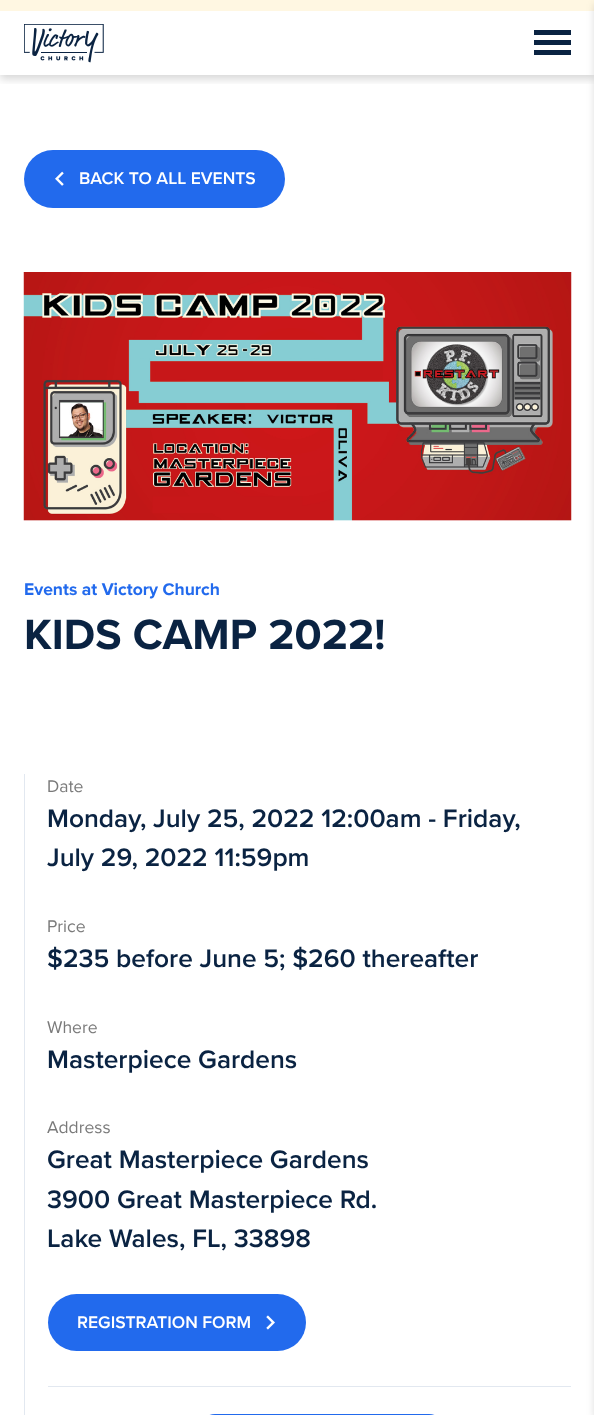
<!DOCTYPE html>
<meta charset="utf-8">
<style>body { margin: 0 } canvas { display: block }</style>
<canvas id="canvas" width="594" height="1415"></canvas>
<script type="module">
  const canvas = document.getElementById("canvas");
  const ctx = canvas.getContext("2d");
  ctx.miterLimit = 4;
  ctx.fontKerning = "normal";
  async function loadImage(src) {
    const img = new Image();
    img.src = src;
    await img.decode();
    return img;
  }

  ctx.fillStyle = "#ffffff";
  ctx.fillRect(0, 0, 594, 1415);
  ctx.save();
  ctx.beginPath();
  ctx.rect(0, 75, 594, 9);
  ctx.clip();
  ctx.fillStyle = "rgba(0, 0, 0, 0.16)";
  ctx.filter = "blur(4px)";
  ctx.beginPath();
  ctx.rect(0, 4, 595, 75);
  ctx.fill();
  ctx.filter = "none";
  ctx.restore();
  ctx.fillStyle = "#fff7e2";
  ctx.fillRect(0, 0, 594, 11);
  ctx.drawImage(await loadImage("img1.png"), 24, 24, 80, 39);
  ctx.fillStyle = "#0a2342";
  ctx.fillRect(534, 40, 37, 5);
  ctx.fillRect(534, 30, 37, 5);
  ctx.fillRect(534, 50, 37, 5);
  ctx.fillStyle = "#226aed";
  ctx.beginPath();
  ctx.roundRect(24, 150, 261, 58, 29);
  ctx.fill();
  ctx.drawImage(await loadImage("img2.png"), 55, 171, 9, 15);
  ctx.font = "600 17.5px Proxima Nova";
  ctx.fillStyle = "#ffffff";
  ctx.fillText("BACK TO ALL EVENTS", 79, 184);
  ctx.drawImage(await loadImage("img3.png"), 23, 272, 549, 249);
  ctx.font = "bold 17.5px Proxima Nova";
  ctx.fillStyle = "#226aed";
  ctx.fillText("Events at Victory Church", 24, 595);
  ctx.font = "bold 43.75px Proxima Nova";
  ctx.fillStyle = "#0a2342";
  ctx.fillText("KIDS CAMP 2022!", 24, 649);
  ctx.fillStyle = "#e2e8f0";
  ctx.fillRect(24, 774, 1, 641);
  ctx.font = "17.5px Proxima Nova";
  ctx.fillStyle = "#7a7a7a";
  ctx.fillText("Date", 47, 792);
  ctx.font = "600 26.25px Proxima Nova";
  ctx.fillStyle = "#0a2342";
  ctx.fillText("Monday, July 25, 2022 12:00am - Friday,", 47, 827);
  ctx.fillText("July 29, 2022 11:59pm", 47, 866);
  ctx.font = "17.5px Proxima Nova";
  ctx.fillStyle = "#7a7a7a";
  ctx.fillText("Price", 47, 932);
  ctx.font = "600 26.25px Proxima Nova";
  ctx.fillStyle = "#0a2342";
  ctx.fillText("$235 before June 5; $260 thereafter", 47, 967);
  ctx.font = "17.5px Proxima Nova";
  ctx.fillStyle = "#7a7a7a";
  ctx.fillText("Where", 47, 1033);
  ctx.font = "600 26.25px Proxima Nova";
  ctx.fillStyle = "#0a2342";
  ctx.fillText("Masterpiece Gardens", 47, 1068);
  ctx.font = "17.5px Proxima Nova";
  ctx.fillStyle = "#7a7a7a";
  ctx.fillText("Address", 47, 1133);
  ctx.font = "600 26.25px Proxima Nova";
  ctx.fillStyle = "#0a2342";
  ctx.fillText("Great Masterpiece Gardens", 47, 1168);
  ctx.fillText("3900 Great Masterpiece Rd.", 47, 1208);
  ctx.fillText("Lake Wales, FL, 33898", 47, 1247);
  ctx.fillStyle = "#226aed";
  ctx.beginPath();
  ctx.roundRect(48, 1294, 258, 57, 28.5);
  ctx.fill();
  ctx.font = "600 17.5px Proxima Nova";
  ctx.fillStyle = "#ffffff";
  ctx.fillText("REGISTRATION FORM", 77, 1328);
  ctx.drawImage(await loadImage("img4.png"), 266, 1315, 9, 15);
  ctx.fillStyle = "#e2e8f0";
  ctx.fillRect(48, 1386, 523, 1);
  ctx.fillStyle = "#226aed";
  ctx.beginPath();
  ctx.roundRect(200, 1414, 244, 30, 28.5);
  ctx.fill();
  ctx.fillStyle = "rgba(0, 0, 0, 0.16)";
  ctx.filter = "blur(4px)";
  ctx.beginPath();
  ctx.rect(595, 4, 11, 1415);
  ctx.fill();
  ctx.filter = "none";
</script>
